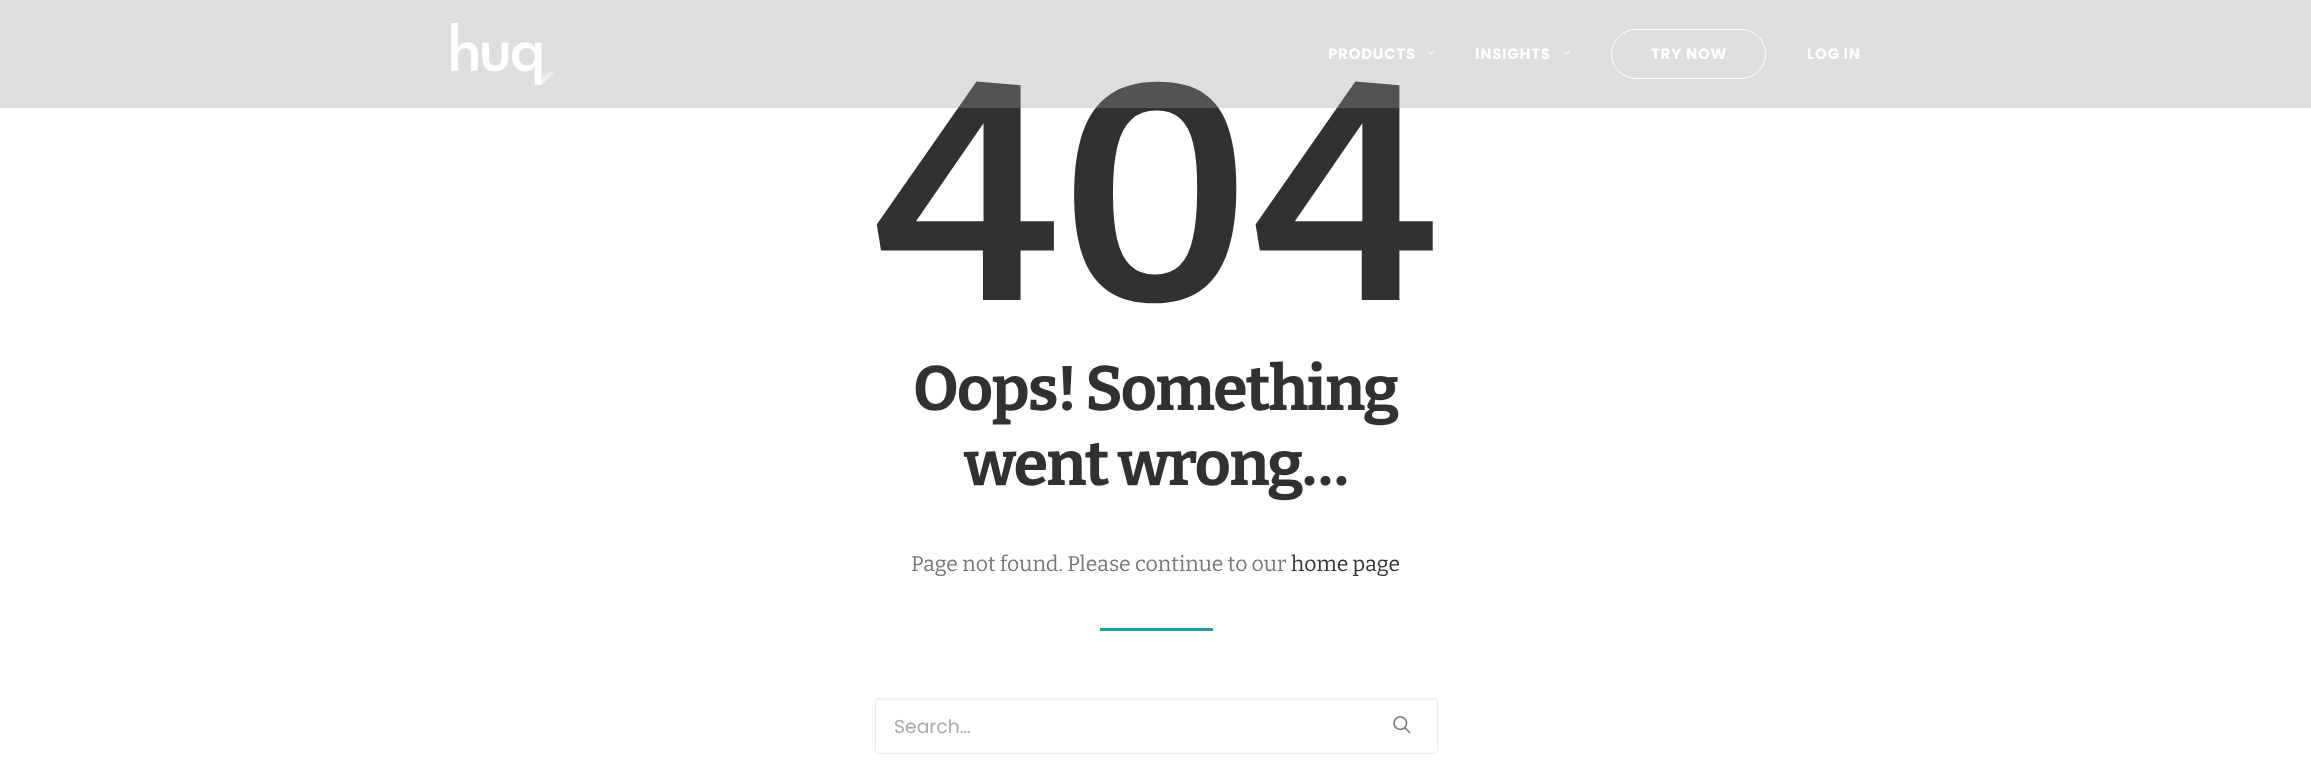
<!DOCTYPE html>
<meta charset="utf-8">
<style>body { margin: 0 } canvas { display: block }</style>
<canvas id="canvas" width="2311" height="767"></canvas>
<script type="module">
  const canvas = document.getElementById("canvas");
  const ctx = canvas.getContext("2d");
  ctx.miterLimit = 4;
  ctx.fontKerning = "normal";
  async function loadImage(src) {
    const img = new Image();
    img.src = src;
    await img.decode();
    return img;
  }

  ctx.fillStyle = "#ffffff";
  ctx.fillRect(0, 0, 2311, 767);
  ctx.font = "600 306px Bitter";
  ctx.fillStyle = "#303133";
  ctx.fillText("404", 874, 300);
  ctx.fillStyle = "rgba(0, 0, 0, 0.16)";
  ctx.fillRect(0, 0, 2311, 108);
  ctx.fillStyle = "rgba(255, 255, 255, 0.2)";
  ctx.fillRect(0, 0, 2311, 108);
  ctx.drawImage(await loadImage("img1.png"), 451, 23, 103, 62);
  ctx.letterSpacing = "0.75px";
  ctx.font = "bold 15px Poppins";
  ctx.fillStyle = "#ffffff";
  ctx.fillText("PRODUCTS", 1328, 59);
  ctx.drawImage(await loadImage("img2.png"), 1428, 51, 7, 4);
  ctx.fillText("INSIGHTS", 1475, 59);
  ctx.drawImage(await loadImage("img2.png"), 1563, 51, 7, 4);
  ctx.beginPath();
  ctx.roundRect(1611.5, 29.5, 154, 49, 24.5);
  ctx.strokeStyle = "#ffffff";
  ctx.stroke();
  ctx.fillText("TRY NOW", 1651, 59);
  ctx.fillText("LOG IN", 1807, 59);
  ctx.letterSpacing = "-1.6px";
  ctx.font = "bold 62.5px Bitter";
  ctx.fillStyle = "#303133";
  ctx.fillText("Oops! Something", 913, 410);
  ctx.fillText("went wrong…", 964, 485);
  ctx.letterSpacing = "0px";
  ctx.font = "21.25px Bitter";
  ctx.fillStyle = "#777777";
  ctx.fillText("Page not found. Please continue to our", 911, 571);
  ctx.fillStyle = "#303133";
  ctx.fillText("home page", 1291, 571);
  ctx.fillStyle = "#229f97";
  ctx.fillRect(1100, 628, 113, 3);
  ctx.fillStyle = "#f9f9f9";
  ctx.beginPath();
  ctx.moveTo(878, 701);
  ctx.lineTo(1435, 701);
  ctx.lineTo(1436, 702);
  ctx.lineTo(1436, 699);
  ctx.lineTo(1435, 699);
  ctx.lineTo(877, 699);
  ctx.bezierCurveTo(876, 699, 876, 701, 876, 702);
  ctx.closePath();
  ctx.fill();
  ctx.beginPath();
  ctx.roundRect(875.5, 698.5, 562, 55, 2);
  ctx.strokeStyle = "#eaeaea";
  ctx.stroke();
  ctx.font = "18.75px Poppins";
  ctx.fillStyle = "#a9a9a9";
  ctx.fillText("Search…", 894, 733);
  ctx.drawImage(await loadImage("img3.png"), 1393, 716, 18, 18);
</script>
